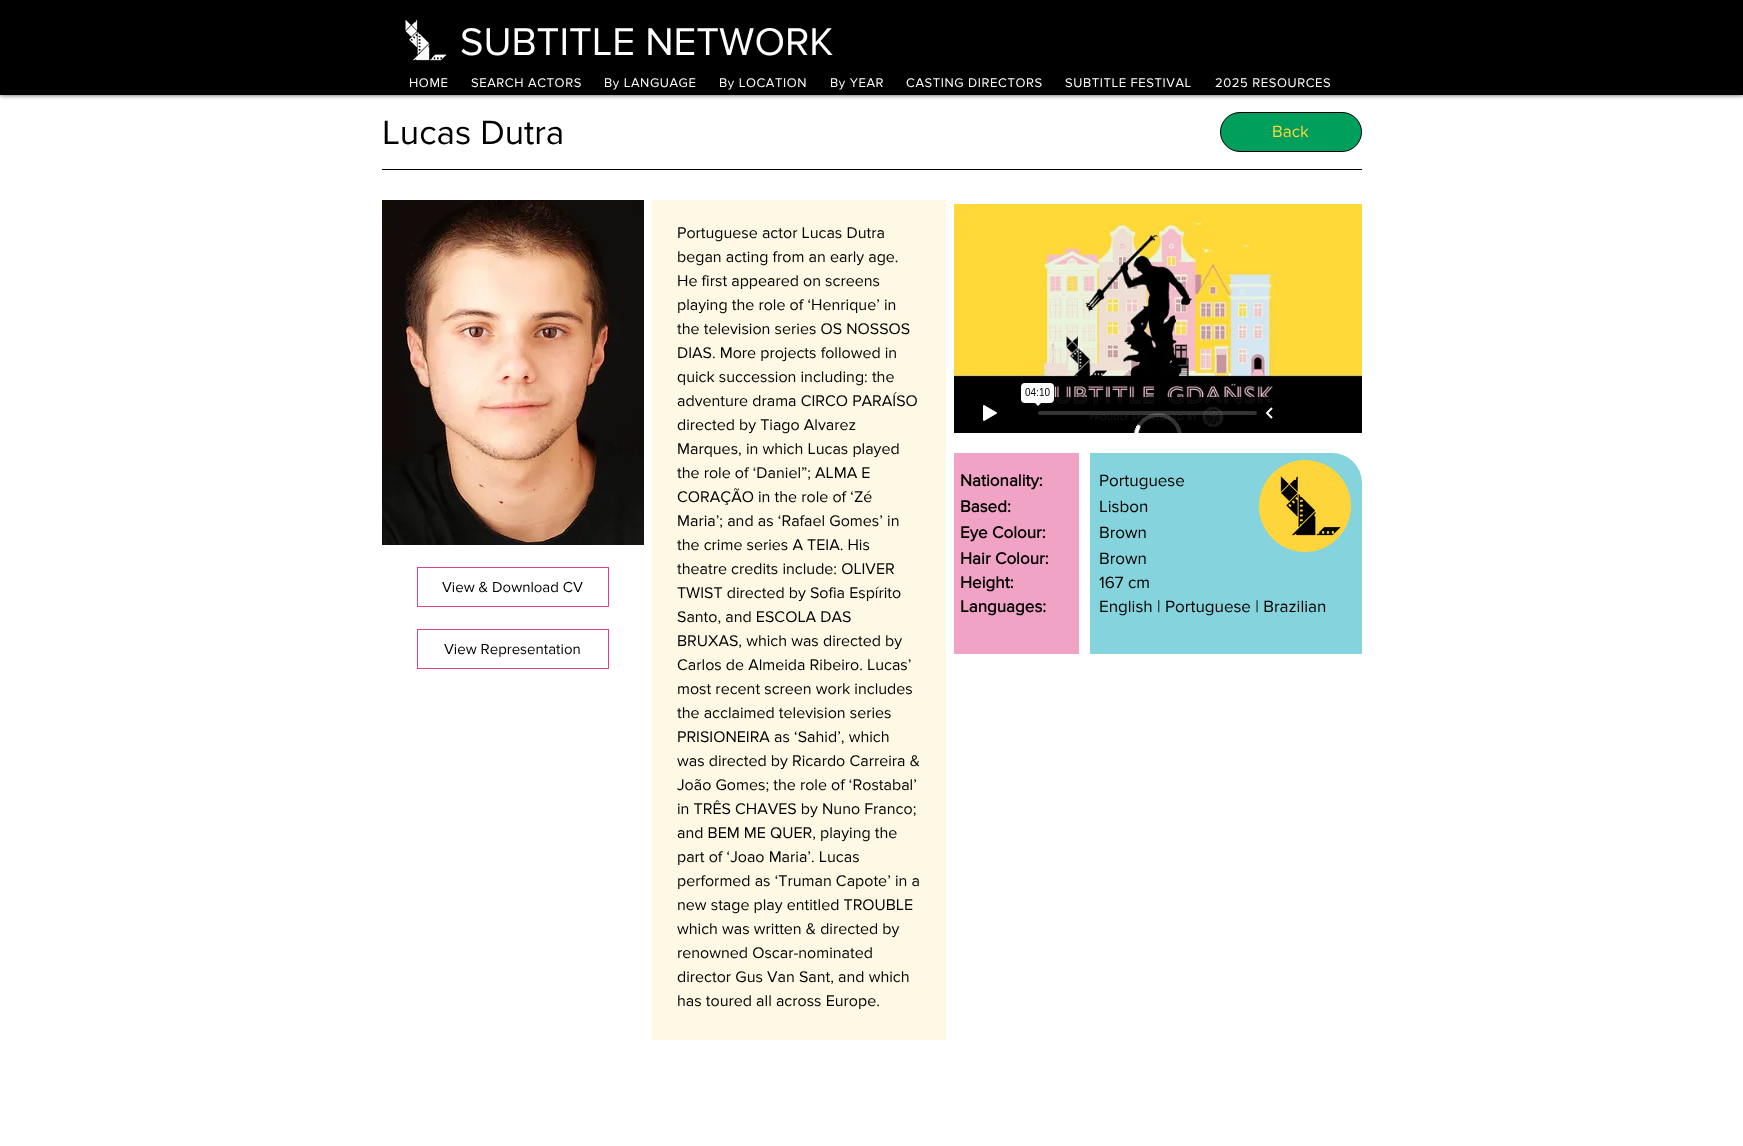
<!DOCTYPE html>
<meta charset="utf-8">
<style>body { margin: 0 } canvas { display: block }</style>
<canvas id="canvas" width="1743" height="1146"></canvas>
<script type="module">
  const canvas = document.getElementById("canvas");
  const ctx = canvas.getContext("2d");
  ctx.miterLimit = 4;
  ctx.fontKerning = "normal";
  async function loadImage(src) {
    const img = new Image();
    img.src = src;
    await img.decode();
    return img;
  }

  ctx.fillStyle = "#ffffff";
  ctx.fillRect(0, 0, 1743, 1146);
  ctx.fillStyle = "rgba(0, 0, 0, 0.7)";
  ctx.filter = "blur(2.5px)";
  ctx.beginPath();
  ctx.rect(0, 0, 1743, 95);
  ctx.fill();
  ctx.filter = "none";
  ctx.fillStyle = "#000000";
  ctx.fillRect(0, 0, 1743, 95);
  ctx.drawImage(await loadImage("img1.png"), 405, 19, 42, 42);
  ctx.font = "40px 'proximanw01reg'";
  ctx.fillStyle = "#ffffff";
  ctx.fillText("SUBTITLE NETWORK", 460, 55);
  ctx.letterSpacing = "0.6px";
  ctx.font = "13px 'proximanw01reg'";
  ctx.fillText("HOME", 409, 87);
  ctx.fillText("SEARCH ACTORS", 471, 87);
  ctx.fillText("By LANGUAGE", 604, 87);
  ctx.fillText("By LOCATION", 719, 87);
  ctx.fillText("By YEAR", 830, 87);
  ctx.fillText("CASTING DIRECTORS", 906, 87);
  ctx.fillText("SUBTITLE FESTIVAL", 1065, 87);
  ctx.fillText("2025 RESOURCES", 1215, 87);
  ctx.letterSpacing = "0px";
  ctx.font = "35px 'proximanw01reg'";
  ctx.fillStyle = "#000000";
  ctx.fillText("Lucas Dutra", 382, 144);
  ctx.fillStyle = "#009f5c";
  ctx.beginPath();
  ctx.roundRect(1220.5, 112.5, 141, 39, 19.5);
  ctx.fill();
  ctx.strokeStyle = "#000000";
  ctx.stroke();
  ctx.font = "17px 'proximanw01reg'";
  ctx.fillStyle = "#ffd53c";
  ctx.fillText("Back", 1272, 137);
  ctx.fillStyle = "#000000";
  ctx.fillRect(382, 169, 980, 1);
  ctx.drawImage(await loadImage("img2.png"), 382, 200, 262, 345);
  ctx.fillStyle = "#fef9e4";
  ctx.fillRect(652, 200, 294, 840);
  ctx.font = "16px 'proximanw01reg'";
  ctx.fillStyle = "#000000";
  ctx.fillText("Portuguese actor Lucas Dutra", 677, 238);
  ctx.fillText("began acting from an early age.", 677, 262);
  ctx.fillText("He first appeared on screens", 677, 286);
  ctx.fillText("playing the role of ‘Henrique’ in", 677, 310);
  ctx.fillText("the television series OS NOSSOS", 677, 334);
  ctx.fillText("DIAS. More projects followed in", 677, 358);
  ctx.fillText("quick succession including: the", 677, 382);
  ctx.fillText("adventure drama CIRCO PARAÍSO", 677, 406);
  ctx.fillText("directed by Tiago Alvarez", 677, 430);
  ctx.fillText("Marques, in which Lucas played", 677, 454);
  ctx.fillText("the role of ‘Daniel”; ALMA E", 677, 478);
  ctx.fillText("CORAÇÃO in the role of ‘Zé", 677, 502);
  ctx.fillText("Maria’; and as ‘Rafael Gomes’ in", 677, 526);
  ctx.fillText("the crime series A TEIA. His", 677, 550);
  ctx.fillText("theatre credits include: OLIVER", 677, 574);
  ctx.fillText("TWIST directed by Sofia Espírito", 677, 598);
  ctx.fillText("Santo, and ESCOLA DAS", 677, 622);
  ctx.fillText("BRUXAS, which was directed by", 677, 646);
  ctx.fillText("Carlos de Almeida Ribeiro. Lucas’", 677, 670);
  ctx.fillText("most recent screen work includes", 677, 694);
  ctx.fillText("the acclaimed television series", 677, 718);
  ctx.fillText("PRISIONEIRA as ‘Sahid’, which", 677, 742);
  ctx.fillText("was directed by Ricardo Carreira &", 677, 766);
  ctx.fillText("João Gomes; the role of ‘Rostabal’", 677, 790);
  ctx.fillText("in TRÊS CHAVES by Nuno Franco;", 677, 814);
  ctx.fillText("and BEM ME QUER, playing the", 677, 838);
  ctx.fillText("part of ‘Joao Maria’. Lucas", 677, 862);
  ctx.fillText("performed as ‘Truman Capote’ in a", 677, 886);
  ctx.fillText("new stage play entitled TROUBLE", 677, 910);
  ctx.fillText("which was written & directed by", 677, 934);
  ctx.fillText("renowned Oscar-nominated", 677, 958);
  ctx.fillText("director Gus Van Sant, and which", 677, 982);
  ctx.fillText("has toured all across Europe.", 677, 1006);
  ctx.drawImage(await loadImage("img3.png"), 954, 204, 408, 229);
  ctx.strokeStyle = "#e13f89";
  ctx.strokeRect(417.5, 567.5, 191, 39);
  ctx.font = "15px 'proximanw01reg'";
  ctx.fillText("View & Download CV", 442, 592);
  ctx.fillStyle = "#f1a3c6";
  ctx.fillRect(954, 453, 125, 201);
  ctx.font = "bold 17px 'proximanw01reg'";
  ctx.fillStyle = "#000000";
  ctx.fillText("Nationality:", 960, 486);
  ctx.fillText("Based:", 960, 512);
  ctx.fillText("Eye Colour:", 960, 538);
  ctx.fillText("Hair Colour:", 960, 564);
  ctx.fillText("Height:", 960, 588);
  ctx.fillText("Languages:", 960, 612);
  ctx.fillStyle = "#85d3dc";
  ctx.beginPath();
  ctx.roundRect(1090, 453, 272, 201, [0, 30, 0, 0]);
  ctx.fill();
  ctx.font = "17px 'proximanw01reg'";
  ctx.fillStyle = "#000000";
  ctx.fillText("Portuguese", 1099, 486);
  ctx.fillStyle = "#ffd53c";
  ctx.beginPath();
  ctx.arc(1305, 506, 46, 0, Math.PI * 2);
  ctx.fill();
  ctx.drawImage(await loadImage("img4.png"), 1280, 476, 61, 60);
  ctx.fillStyle = "#000000";
  ctx.fillText("Lisbon", 1099, 512);
  ctx.fillText("Brown", 1099, 538);
  ctx.fillText("Brown", 1099, 564);
  ctx.fillText("167 cm", 1099, 588);
  ctx.fillText("English | Portuguese | Brazilian", 1099, 612);
  ctx.strokeRect(417.5, 629.5, 191, 39);
  ctx.font = "15px 'proximanw01reg'";
  ctx.fillText("View Representation", 444, 654);
</script>
